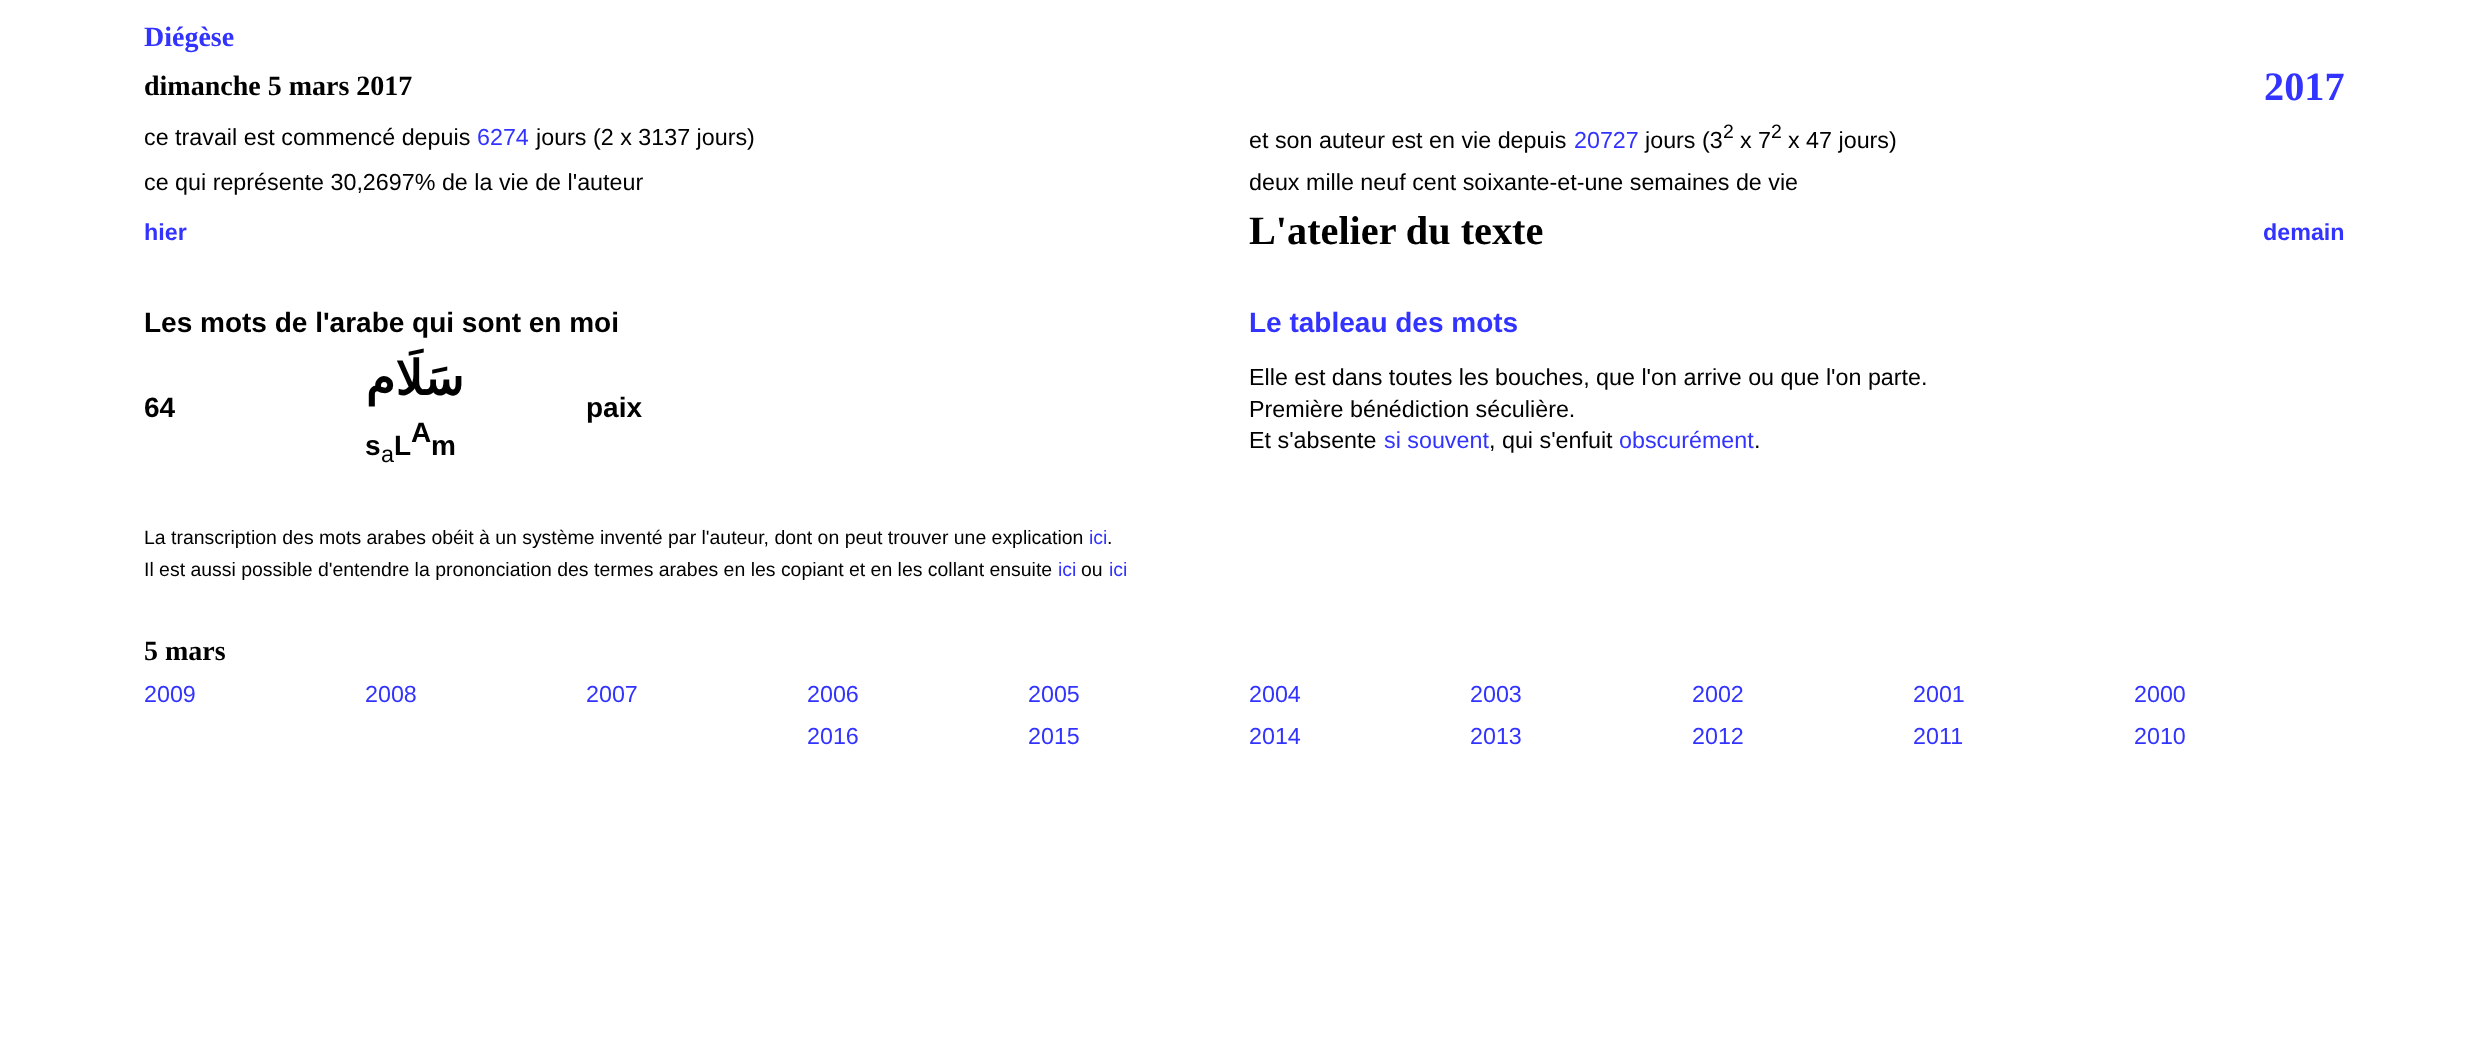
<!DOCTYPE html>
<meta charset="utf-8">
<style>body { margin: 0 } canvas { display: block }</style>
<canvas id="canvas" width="2488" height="1044"></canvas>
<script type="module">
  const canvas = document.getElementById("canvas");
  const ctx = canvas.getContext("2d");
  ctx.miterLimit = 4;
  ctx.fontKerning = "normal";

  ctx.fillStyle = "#ffffff";
  ctx.fillRect(0, 0, 2488, 1044);
  ctx.font = "bold 28px Liberation Serif";
  ctx.fillStyle = "#3333ff";
  ctx.fillText("Diégèse", 144, 46);
  ctx.fillStyle = "#000000";
  ctx.fillText("dimanche 5 mars 2017", 144, 95);
  ctx.font = "bold 40.25px Liberation Serif";
  ctx.fillStyle = "#3333ff";
  ctx.fillText("2017", 2264, 100);
  ctx.font = "23.3px Liberation Sans";
  ctx.fillStyle = "#000000";
  ctx.fillText("ce travail est commencé depuis", 144, 145);
  ctx.fillStyle = "#3333ff";
  ctx.fillText("6274", 477, 145);
  ctx.fillStyle = "#000000";
  ctx.fillText("jours (2 x 3137 jours)", 536, 145);
  ctx.fillText("et son auteur est en vie depuis", 1249, 148);
  ctx.fillStyle = "#3333ff";
  ctx.fillText("20727", 1574, 148);
  ctx.fillStyle = "#000000";
  ctx.fillText("jours (3", 1645, 148);
  ctx.font = "19.45px Liberation Sans";
  ctx.fillText("2", 1723, 138);
  ctx.font = "23.3px Liberation Sans";
  ctx.fillText("x 7", 1740, 148);
  ctx.font = "19.45px Liberation Sans";
  ctx.fillText("2", 1771, 138);
  ctx.font = "23.3px Liberation Sans";
  ctx.fillText("x 47 jours)", 1788, 148);
  ctx.fillText("ce qui représente 30,2697% de la vie de l'auteur", 144, 190);
  ctx.fillText("deux mille neuf cent soixante-et-une semaines de vie", 1249, 190);
  ctx.font = "bold 23.3px Liberation Sans";
  ctx.fillStyle = "#3333ff";
  ctx.fillText("hier", 144, 240);
  ctx.font = "bold 40.25px Liberation Serif";
  ctx.fillStyle = "#000000";
  ctx.fillText("L'atelier du texte", 1249, 244);
  ctx.font = "bold 23.3px Liberation Sans";
  ctx.fillStyle = "#3333ff";
  ctx.fillText("demain", 2263, 240);
  ctx.font = "bold 28px Liberation Sans";
  ctx.fillStyle = "#000000";
  ctx.fillText("Les mots de l'arabe qui sont en moi", 144, 332);
  ctx.fillStyle = "#3333ff";
  ctx.fillText("Le tableau des mots", 1249, 332);
  ctx.fillStyle = "#000000";
  ctx.fillText("64", 144, 417);
  ctx.direction = "rtl";
  ctx.font = "bold 48px DejaVu Sans";
  ctx.fillText("سَلَام", 464, 395);
  ctx.direction = "ltr";
  ctx.font = "bold 28px Liberation Sans";
  ctx.fillText("paix", 586, 417);
  ctx.font = "23.3px Liberation Sans";
  ctx.fillText("Elle est dans toutes les bouches, que l'on arrive ou que l'on parte.", 1249, 385);
  ctx.fillText("Première bénédiction séculière.", 1249, 417);
  ctx.fillText("Et s'absente", 1249, 448);
  ctx.fillStyle = "#3333ff";
  ctx.fillText("si souvent", 1384, 448);
  ctx.fillStyle = "#000000";
  ctx.fillText(", qui s'enfuit", 1489, 448);
  ctx.fillStyle = "#3333ff";
  ctx.fillText("obscurément", 1619, 448);
  ctx.fillStyle = "#000000";
  ctx.fillText(".", 1754, 448);
  ctx.font = "bold 28px Liberation Sans";
  ctx.fillText("A", 411, 442);
  ctx.fillText("s", 365, 455);
  ctx.font = "23.3px Liberation Sans";
  ctx.fillText("a", 381, 462);
  ctx.font = "bold 28px Liberation Sans";
  ctx.fillText("L", 394, 455);
  ctx.fillText("m", 431, 455);
  ctx.font = "19.45px Liberation Sans";
  ctx.fillText("La transcription des mots arabes obéit à un système inventé par l'auteur, dont on peut trouver une explication", 144, 544);
  ctx.fillStyle = "#3333ff";
  ctx.fillText("ici", 1089, 544);
  ctx.fillStyle = "#000000";
  ctx.fillText(".", 1107, 544);
  ctx.fillText("Il est aussi possible d'entendre la prononciation des termes arabes en les copiant et en les collant ensuite", 144, 576);
  ctx.fillStyle = "#3333ff";
  ctx.fillText("ici", 1058, 576);
  ctx.fillStyle = "#000000";
  ctx.fillText("ou", 1081, 576);
  ctx.fillStyle = "#3333ff";
  ctx.fillText("ici", 1109, 576);
  ctx.font = "bold 28px Liberation Serif";
  ctx.fillStyle = "#000000";
  ctx.fillText("5 mars", 144, 660);
  ctx.font = "23.3px Liberation Sans";
  ctx.fillStyle = "#3333ff";
  ctx.fillText("2009", 144, 702);
  ctx.fillText("2008", 365, 702);
  ctx.fillText("2007", 586, 702);
  ctx.fillText("2006", 807, 702);
  ctx.fillText("2005", 1028, 702);
  ctx.fillText("2004", 1249, 702);
  ctx.fillText("2003", 1470, 702);
  ctx.fillText("2002", 1692, 702);
  ctx.fillText("2001", 1913, 702);
  ctx.fillText("2000", 2134, 702);
  ctx.fillText("2016", 807, 744);
  ctx.fillText("2015", 1028, 744);
  ctx.fillText("2014", 1249, 744);
  ctx.fillText("2013", 1470, 744);
  ctx.fillText("2012", 1692, 744);
  ctx.fillText("2011", 1913, 744);
  ctx.fillText("2010", 2134, 744);
</script>
